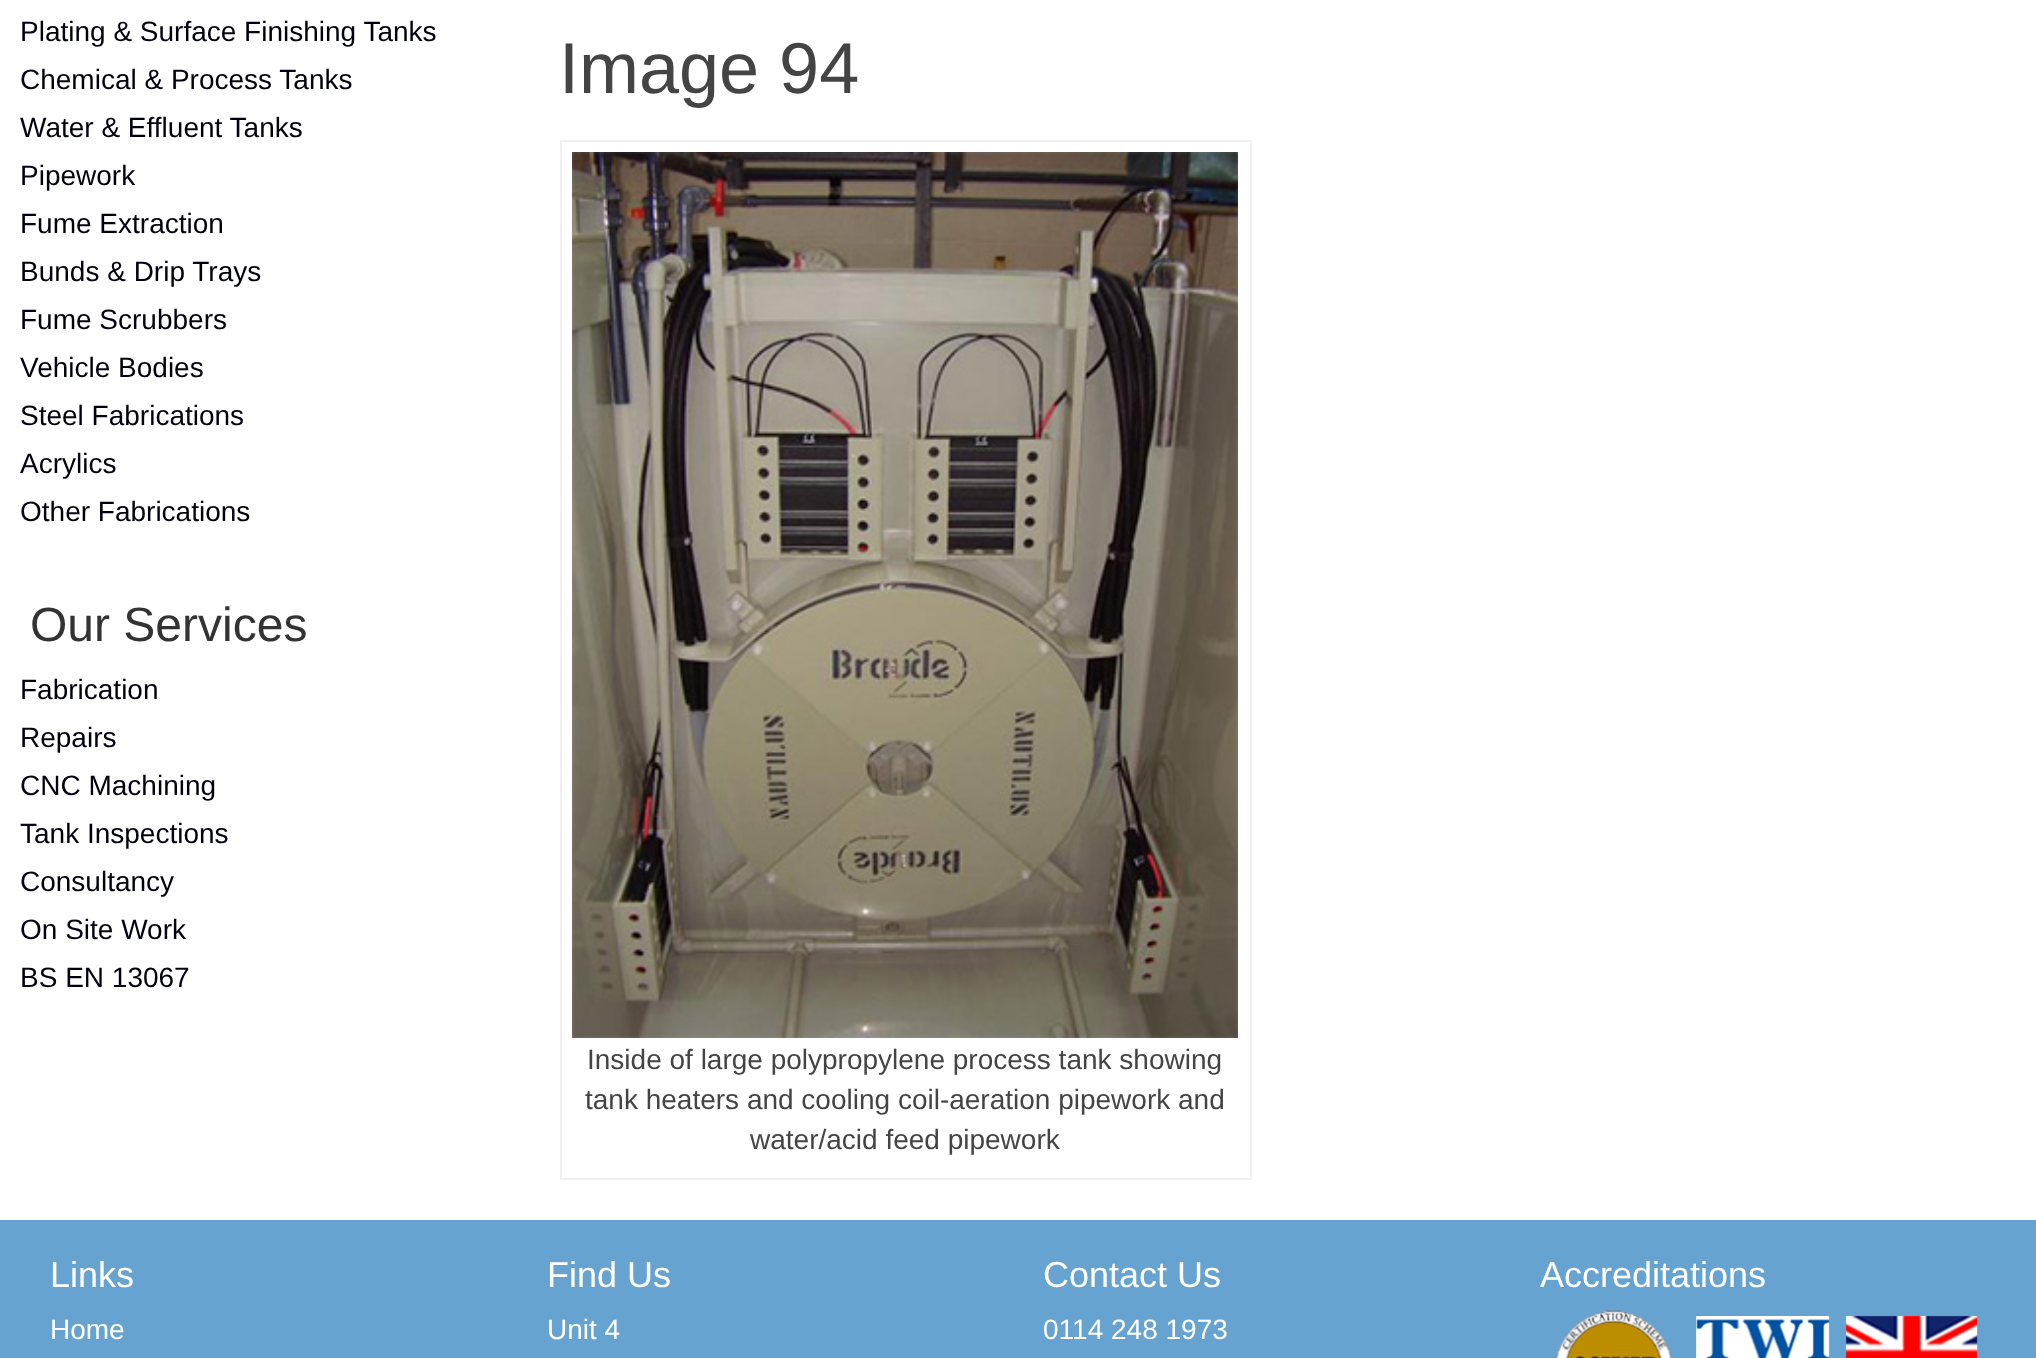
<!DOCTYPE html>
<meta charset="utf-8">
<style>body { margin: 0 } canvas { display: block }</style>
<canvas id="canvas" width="2036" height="1358"></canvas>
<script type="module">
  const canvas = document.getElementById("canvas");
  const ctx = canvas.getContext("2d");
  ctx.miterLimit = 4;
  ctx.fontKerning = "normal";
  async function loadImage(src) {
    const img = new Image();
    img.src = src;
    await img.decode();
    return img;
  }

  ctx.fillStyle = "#ffffff";
  ctx.fillRect(0, 0, 2036, 1358);
  ctx.font = "28px Liberation Sans";
  ctx.fillStyle = "#00000e";
  ctx.fillText("Plating & Surface Finishing Tanks", 20, 41);
  ctx.fillText("Chemical & Process Tanks", 20, 89);
  ctx.fillText("Water & Effluent Tanks", 20, 137);
  ctx.fillText("Pipework", 20, 185);
  ctx.fillText("Fume Extraction", 20, 233);
  ctx.fillText("Bunds & Drip Trays", 20, 281);
  ctx.fillText("Fume Scrubbers", 20, 329);
  ctx.fillText("Vehicle Bodies", 20, 377);
  ctx.fillText("Steel Fabrications", 20, 425);
  ctx.fillText("Acrylics", 20, 473);
  ctx.fillText("Other Fabrications", 20, 521);
  ctx.font = "48px Liberation Sans";
  ctx.fillStyle = "#333333";
  ctx.fillText("Our Services", 30, 641);
  ctx.font = "28px Liberation Sans";
  ctx.fillStyle = "#00000e";
  ctx.fillText("Fabrication", 20, 699);
  ctx.fillText("Repairs", 20, 747);
  ctx.fillText("CNC Machining", 20, 795);
  ctx.fillText("Tank Inspections", 20, 843);
  ctx.fillText("Consultancy", 20, 891);
  ctx.fillText("On Site Work", 20, 939);
  ctx.fillText("BS EN 13067", 20, 987);
  ctx.font = "72px Liberation Sans";
  ctx.fillStyle = "#444444";
  ctx.fillText("Image 94", 559, 93);
  ctx.strokeStyle = "#f0f0f0";
  ctx.lineWidth = 2;
  ctx.strokeRect(561, 141, 690, 1038);
  ctx.drawImage(await loadImage("img1.png"), 572, 152, 666, 886);
  ctx.font = "28px Liberation Sans";
  ctx.fillText("Inside of large polypropylene process tank showing", 587, 1069);
  ctx.fillText("tank heaters and cooling coil-aeration pipework and", 585, 1109);
  ctx.fillText("water/acid feed pipework", 750, 1149);
  ctx.fillStyle = "#66a3d0";
  ctx.fillRect(0, 1220, 2036, 138);
  ctx.font = "36px Liberation Sans";
  ctx.fillStyle = "#ffffff";
  ctx.fillText("Links", 50, 1287);
  ctx.font = "28px Liberation Sans";
  ctx.fillText("Home", 50, 1339);
  ctx.font = "36px Liberation Sans";
  ctx.fillText("Find Us", 547, 1287);
  ctx.font = "28px Liberation Sans";
  ctx.fillText("Unit 4", 547, 1339);
  ctx.font = "36px Liberation Sans";
  ctx.fillText("Contact Us", 1043, 1287);
  ctx.font = "28px Liberation Sans";
  ctx.fillText("0114 248 1973", 1043, 1339);
  ctx.font = "36px Liberation Sans";
  ctx.fillText("Accreditations", 1540, 1287);
  ctx.drawImage(await loadImage("img2.png"), 1555, 1310, 117, 48);
  ctx.drawImage(await loadImage("img3.png"), 1696, 1316, 134, 42);
  ctx.drawImage(await loadImage("img4.png"), 1845, 1315, 133, 43);
</script>
